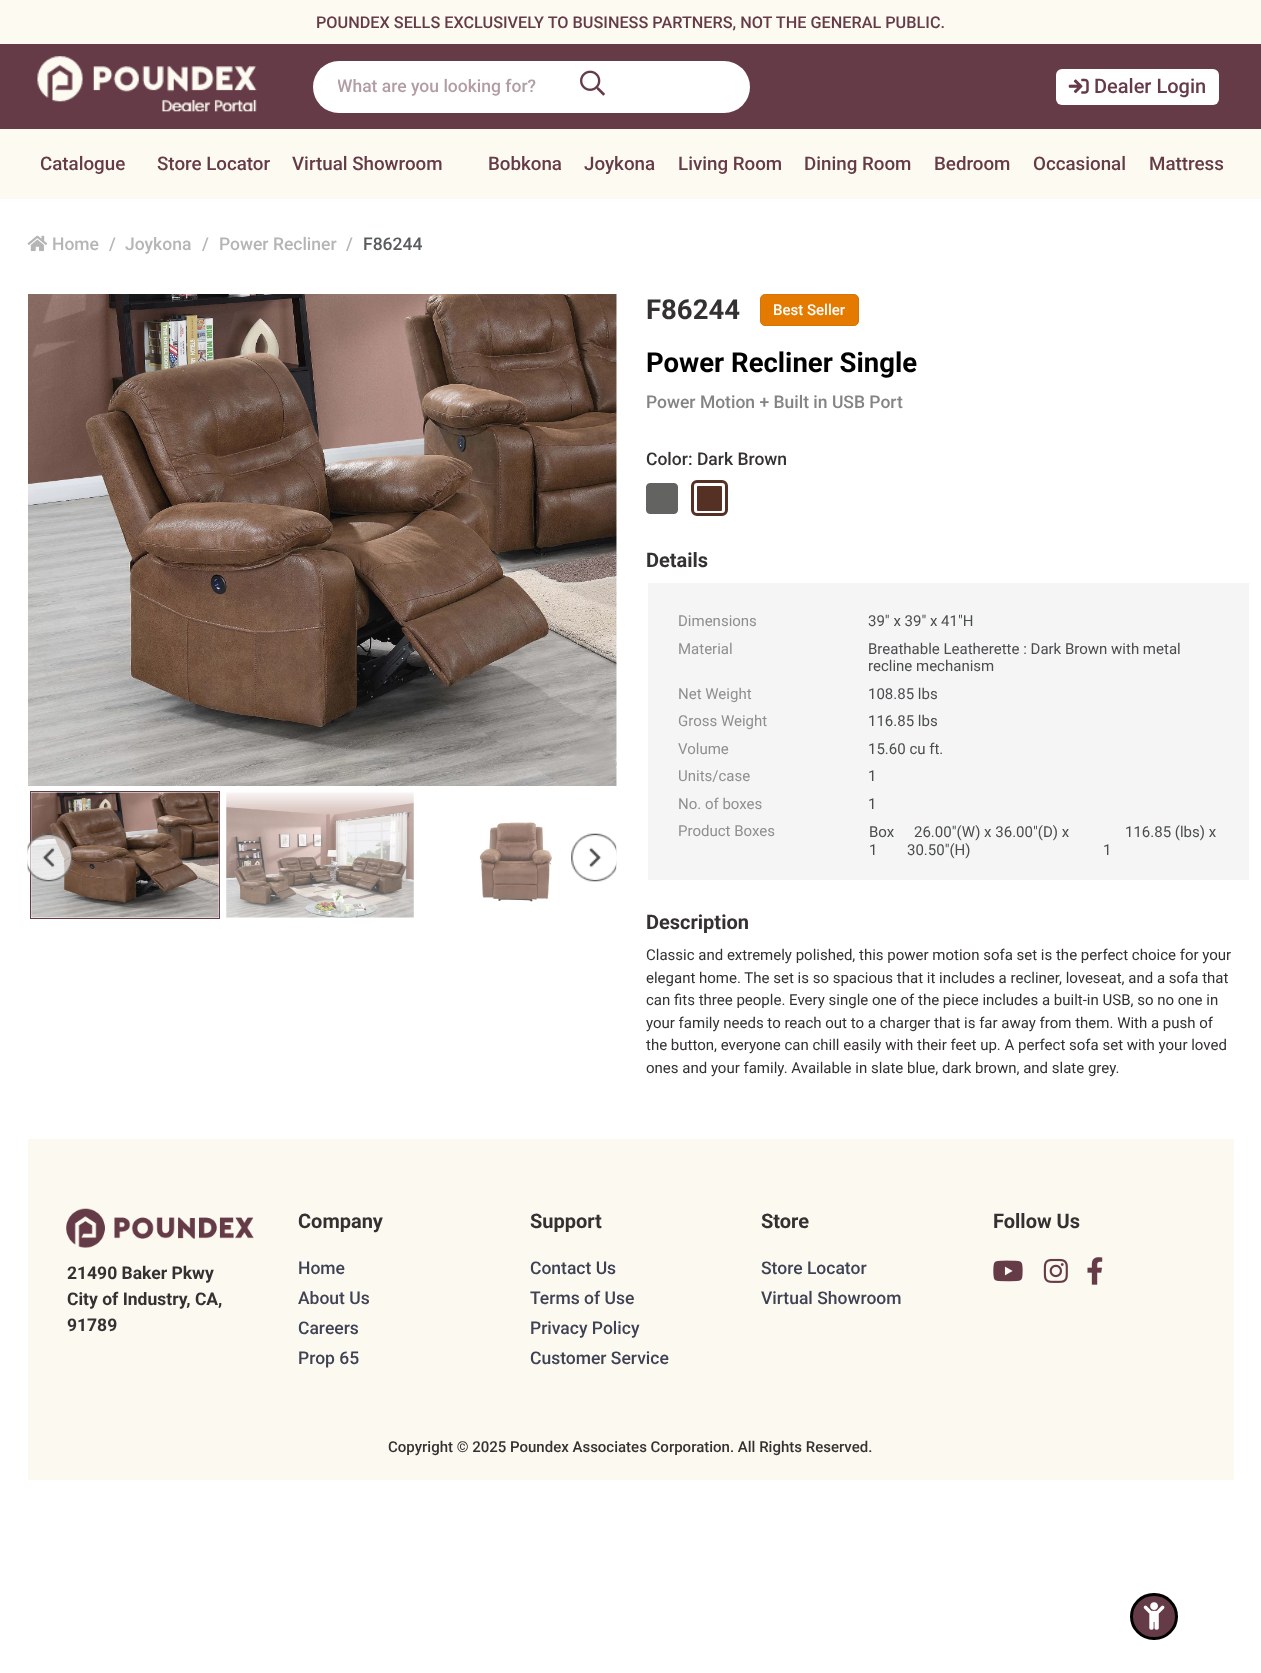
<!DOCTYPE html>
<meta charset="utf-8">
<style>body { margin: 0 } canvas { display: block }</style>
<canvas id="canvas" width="1261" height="1673"></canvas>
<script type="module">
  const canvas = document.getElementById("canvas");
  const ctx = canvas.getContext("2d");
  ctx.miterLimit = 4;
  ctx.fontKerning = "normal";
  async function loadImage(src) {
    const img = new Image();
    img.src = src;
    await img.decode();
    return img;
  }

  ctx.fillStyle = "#ffffff";
  ctx.fillRect(0, 0, 1261, 1673);
  ctx.fillStyle = "#fcfaf1";
  ctx.fillRect(0, 0, 1261, 44);
  ctx.font = "500 16.25px Roboto";
  ctx.fillStyle = "#653b47";
  ctx.fillText("POUNDEX SELLS EXCLUSIVELY TO BUSINESS PARTNERS, NOT THE GENERAL PUBLIC.", 316, 28);
  ctx.fillRect(0, 44, 1261, 85);
  ctx.drawImage(await loadImage("img1.png"), 37, 56, 220, 56);
  ctx.fillStyle = "#ffffff";
  ctx.beginPath();
  ctx.roundRect(313, 61, 437, 52, 26);
  ctx.fill();
  ctx.save();
  ctx.beginPath();
  ctx.rect(338, 76, 387, 20);
  ctx.clip();
  ctx.font = "500 17.5px Roboto";
  ctx.fillStyle = "#b29da3";
  ctx.fillText("What are you looking for?", 337, 92);
  ctx.restore();
  ctx.drawImage(await loadImage("img2.png"), 580, 70, 25, 26);
  ctx.beginPath();
  ctx.roundRect(1056, 69, 163, 36, 6);
  ctx.fill();
  ctx.drawImage(await loadImage("img3.png"), 1068, 78, 21, 16);
  ctx.font = "500 20px Roboto";
  ctx.fillStyle = "#653b47";
  ctx.fillText("Dealer Login", 1094, 93);
  ctx.fillStyle = "#fcfaf1";
  ctx.fillRect(0, 129, 1261, 70);
  ctx.font = "500 18.75px Roboto";
  ctx.fillStyle = "#653b47";
  ctx.fillText("Catalogue", 40, 170);
  ctx.fillText("Store Locator", 157, 170);
  ctx.fillText("Virtual Showroom", 292, 170);
  ctx.fillText("Bobkona", 488, 170);
  ctx.fillText("Joykona", 584, 170);
  ctx.fillText("Living Room", 678, 170);
  ctx.fillText("Dining Room", 804, 170);
  ctx.fillText("Bedroom", 934, 170);
  ctx.fillText("Occasional", 1033, 170);
  ctx.fillText("Mattress", 1149, 170);
  ctx.drawImage(await loadImage("img4.png"), 27, 235, 21, 17);
  ctx.font = "500 17.5px Roboto";
  ctx.fillStyle = "#b5b5b5";
  ctx.fillText("Home", 52, 250);
  ctx.fillText("/", 109, 250);
  ctx.fillText("Joykona", 125, 250);
  ctx.fillText("/", 202, 250);
  ctx.fillText("Power Recliner", 219, 250);
  ctx.fillText("/", 346, 250);
  ctx.fillStyle = "#595c5f";
  ctx.fillText("F86244", 363, 250);
  ctx.drawImage(await loadImage("img5.png"), 28, 294, 589, 492);
  ctx.drawImage(await loadImage("img6.png"), 31, 792, 188, 126);
  ctx.strokeStyle = "#653b47";
  ctx.strokeRect(30.5, 791.5, 189, 127);
  ctx.drawImage(await loadImage("img7.png"), 226, 792, 188, 126);
  ctx.drawImage(await loadImage("img8.png"), 479, 822, 73, 80);
  ctx.drawImage(await loadImage("img9.png"), 27, 833, 46, 49);
  ctx.drawImage(await loadImage("img10.png"), 571, 833, 46, 49);
  ctx.font = "bold 27.5px Roboto";
  ctx.fillStyle = "#343132";
  ctx.fillText("F86244", 646, 319);
  ctx.fillStyle = "#e47a00";
  ctx.beginPath();
  ctx.roundRect(760.5, 294.5, 98, 31, 4.5);
  ctx.fill();
  ctx.strokeStyle = "#d67405";
  ctx.stroke();
  ctx.font = "500 15px Roboto";
  ctx.fillStyle = "#ffffff";
  ctx.fillText("Best Seller", 773, 315);
  ctx.font = "bold 27.5px Roboto";
  ctx.fillStyle = "#000000";
  ctx.fillText("Power Recliner Single", 646, 372);
  ctx.font = "500 17.5px Roboto";
  ctx.fillStyle = "#858384";
  ctx.fillText("Power Motion + Built in USB Port", 646, 408);
  ctx.fillStyle = "#343132";
  ctx.fillText("Color: Dark Brown", 646, 465);
  ctx.fillStyle = "#636361";
  ctx.beginPath();
  ctx.roundRect(646.5, 483.5, 31, 30, 3.5);
  ctx.fill();
  ctx.strokeStyle = "#636361";
  ctx.stroke();
  ctx.fillStyle = "#553125";
  ctx.beginPath();
  ctx.roundRect(695.5, 484.5, 28, 28, 2.5);
  ctx.fill();
  ctx.strokeStyle = "#ffffff";
  ctx.lineWidth = 3;
  ctx.stroke();
  ctx.beginPath();
  ctx.roundRect(692.5, 481.5, 34, 33, 4.5);
  ctx.strokeStyle = "#553125";
  ctx.stroke();
  ctx.font = "bold 20px Roboto";
  ctx.fillStyle = "#343132";
  ctx.fillText("Details", 646, 567);
  ctx.fillStyle = "#f5f5f5";
  ctx.fillRect(648, 583, 601, 297);
  ctx.font = "15px Roboto";
  ctx.fillStyle = "#8f8f8f";
  ctx.fillText("Dimensions", 678, 626);
  ctx.fillStyle = "#4a4d4e";
  ctx.fillText("39\" x 39\" x 41\"H", 868, 626);
  ctx.fillStyle = "#8f8f8f";
  ctx.fillText("Material", 678, 654);
  ctx.fillStyle = "#4a4d4e";
  ctx.fillText("Breathable Leatherette : Dark Brown with metal", 868, 654);
  ctx.fillText("recline mechanism", 868, 671);
  ctx.fillStyle = "#8f8f8f";
  ctx.fillText("Net Weight", 678, 699);
  ctx.fillStyle = "#4a4d4e";
  ctx.fillText("108.85 lbs", 868, 699);
  ctx.fillStyle = "#8f8f8f";
  ctx.fillText("Gross Weight", 678, 726);
  ctx.fillStyle = "#4a4d4e";
  ctx.fillText("116.85 lbs", 868, 726);
  ctx.fillStyle = "#8f8f8f";
  ctx.fillText("Volume", 678, 754);
  ctx.fillStyle = "#4a4d4e";
  ctx.fillText("15.60 cu ft.", 868, 754);
  ctx.fillStyle = "#8f8f8f";
  ctx.fillText("Units/case", 678, 781);
  ctx.fillStyle = "#4a4d4e";
  ctx.fillText("1", 868, 781);
  ctx.fillStyle = "#8f8f8f";
  ctx.fillText("No. of boxes", 678, 809);
  ctx.fillStyle = "#4a4d4e";
  ctx.fillText("1", 868, 809);
  ctx.fillStyle = "#8f8f8f";
  ctx.fillText("Product Boxes", 678, 836);
  ctx.fillStyle = "#4a4d4e";
  ctx.fillText("Box", 869, 837);
  ctx.fillText("1", 869, 855);
  ctx.fillText("26.00\"(W) x 36.00\"(D) x", 914, 837);
  ctx.fillText("30.50\"(H)", 907, 855);
  ctx.fillText("116.85 (lbs) x", 1125, 837);
  ctx.fillText("1", 1103, 855);
  ctx.font = "bold 20px Roboto";
  ctx.fillStyle = "#343132";
  ctx.fillText("Description", 646, 929);
  ctx.font = "15px Roboto";
  ctx.fillText("Classic and extremely polished, this power motion sofa set is the perfect choice for your", 646, 960);
  ctx.fillText("elegant home. The set is so spacious that it includes a recliner, loveseat, and a sofa that", 646, 983);
  ctx.fillText("can fits three people. Every single one of the piece includes a built-in USB, so no one in", 646, 1005);
  ctx.fillText("your family needs to reach out to a charger that is far away from them. With a push of", 646, 1028);
  ctx.fillText("the button, everyone can chill easily with their feet up. A perfect sofa set with your loved", 646, 1050);
  ctx.fillText("ones and your family. Available in slate blue, dark brown, and slate grey.", 646, 1073);
  ctx.fillStyle = "#fcf9f0";
  ctx.fillRect(28, 1139, 1206, 341);
  ctx.font = "bold 20px Roboto";
  ctx.fillStyle = "#343132";
  ctx.fillText("Company", 298, 1228);
  ctx.font = "500 17.5px Roboto";
  ctx.fillStyle = "#3f4254";
  ctx.fillText("Home", 298, 1274);
  ctx.fillText("About Us", 298, 1304);
  ctx.fillText("Careers", 298, 1334);
  ctx.fillText("Prop 65", 298, 1364);
  ctx.font = "bold 20px Roboto";
  ctx.fillStyle = "#343132";
  ctx.fillText("Support", 530, 1228);
  ctx.font = "500 17.5px Roboto";
  ctx.fillStyle = "#3f4254";
  ctx.fillText("Contact Us", 530, 1274);
  ctx.fillText("Terms of Use", 530, 1304);
  ctx.fillText("Privacy Policy", 530, 1334);
  ctx.fillText("Customer Service", 530, 1364);
  ctx.font = "bold 20px Roboto";
  ctx.fillStyle = "#343132";
  ctx.fillText("Store", 761, 1228);
  ctx.font = "500 17.5px Roboto";
  ctx.fillStyle = "#3f4254";
  ctx.fillText("Store Locator", 761, 1274);
  ctx.fillText("Virtual Showroom", 761, 1304);
  ctx.font = "bold 20px Roboto";
  ctx.fillStyle = "#343132";
  ctx.fillText("Follow Us", 993, 1228);
  ctx.drawImage(await loadImage("img11.png"), 993, 1260, 30, 22);
  ctx.drawImage(await loadImage("img12.png"), 1043, 1258, 25, 25);
  ctx.drawImage(await loadImage("img13.png"), 1087, 1257, 16, 28);
  ctx.drawImage(await loadImage("img14.png"), 66, 1208, 188, 40);
  ctx.font = "bold 17.5px Roboto";
  ctx.fillText("21490 Baker Pkwy", 67, 1279);
  ctx.fillText("City of Industry, CA,", 67, 1305);
  ctx.fillText("91789", 67, 1331);
  ctx.font = "500 15px Roboto";
  ctx.fillText("Copyright © 2025 Poundex Associates Corporation. All Rights Reserved.", 388, 1452);
  ctx.fillStyle = "#653b47";
  ctx.beginPath();
  ctx.roundRect(1131.5, 1594.5, 45, 44, 22);
  ctx.fill();
  ctx.strokeStyle = "#000000";
  ctx.stroke();
  ctx.drawImage(await loadImage("img15.png"), 1143, 1602, 22, 28);
</script>
